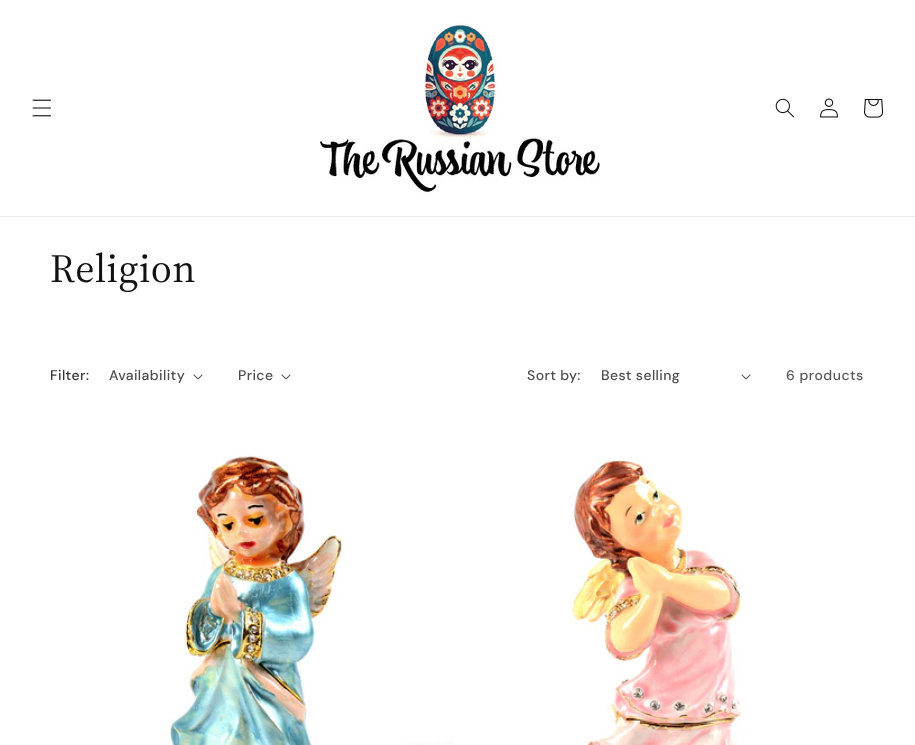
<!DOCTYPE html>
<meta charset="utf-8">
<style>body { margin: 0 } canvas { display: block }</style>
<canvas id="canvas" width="915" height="745"></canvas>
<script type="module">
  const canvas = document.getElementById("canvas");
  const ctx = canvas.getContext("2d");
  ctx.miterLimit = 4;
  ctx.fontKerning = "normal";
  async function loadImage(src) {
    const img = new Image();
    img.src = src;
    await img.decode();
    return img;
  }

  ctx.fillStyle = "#ffffff";
  ctx.fillRect(0, 0, 915, 745);
  ctx.fillStyle = "#ececec";
  ctx.fillRect(0, 216, 915, 1);
  ctx.drawImage(await loadImage("img1.png"), 32, 99, 20, 18);
  ctx.drawImage(await loadImage("img2.png"), 320, 22, 280, 172);
  ctx.drawImage(await loadImage("img3.png"), 775, 98, 19, 20);
  ctx.drawImage(await loadImage("img4.png"), 820, 98, 18, 20);
  ctx.drawImage(await loadImage("img5.png"), 864, 99, 20, 19);
  ctx.letterSpacing = "0.5px";
  ctx.font = "40px 'Source Serif 4'";
  ctx.fillStyle = "#121212";
  ctx.fillText("Religion", 50, 282);
  ctx.letterSpacing = "0.4px";
  ctx.font = "500 14px DM Sans";
  ctx.fillStyle = "#363636";
  ctx.fillText("Filter:", 50, 380);
  ctx.fillStyle = "#4d4d4d";
  ctx.fillText("Availability", 109, 380);
  ctx.drawImage(await loadImage("img6.png"), 193, 374, 10, 6);
  ctx.fillText("Price", 238, 380);
  ctx.drawImage(await loadImage("img6.png"), 281, 374, 10, 6);
  ctx.fillText("Sort by:", 527, 380);
  ctx.fillText("Best selling", 601, 380);
  ctx.drawImage(await loadImage("img6.png"), 741, 374, 10, 6);
  ctx.letterSpacing = "0.5px";
  ctx.fillStyle = "#595959";
  ctx.fillText("6 products", 786, 380);
  ctx.drawImage(await loadImage("img7.png"), 50, 422, 404, 323);
  ctx.drawImage(await loadImage("img8.png"), 462, 422, 403, 323);
</script>
